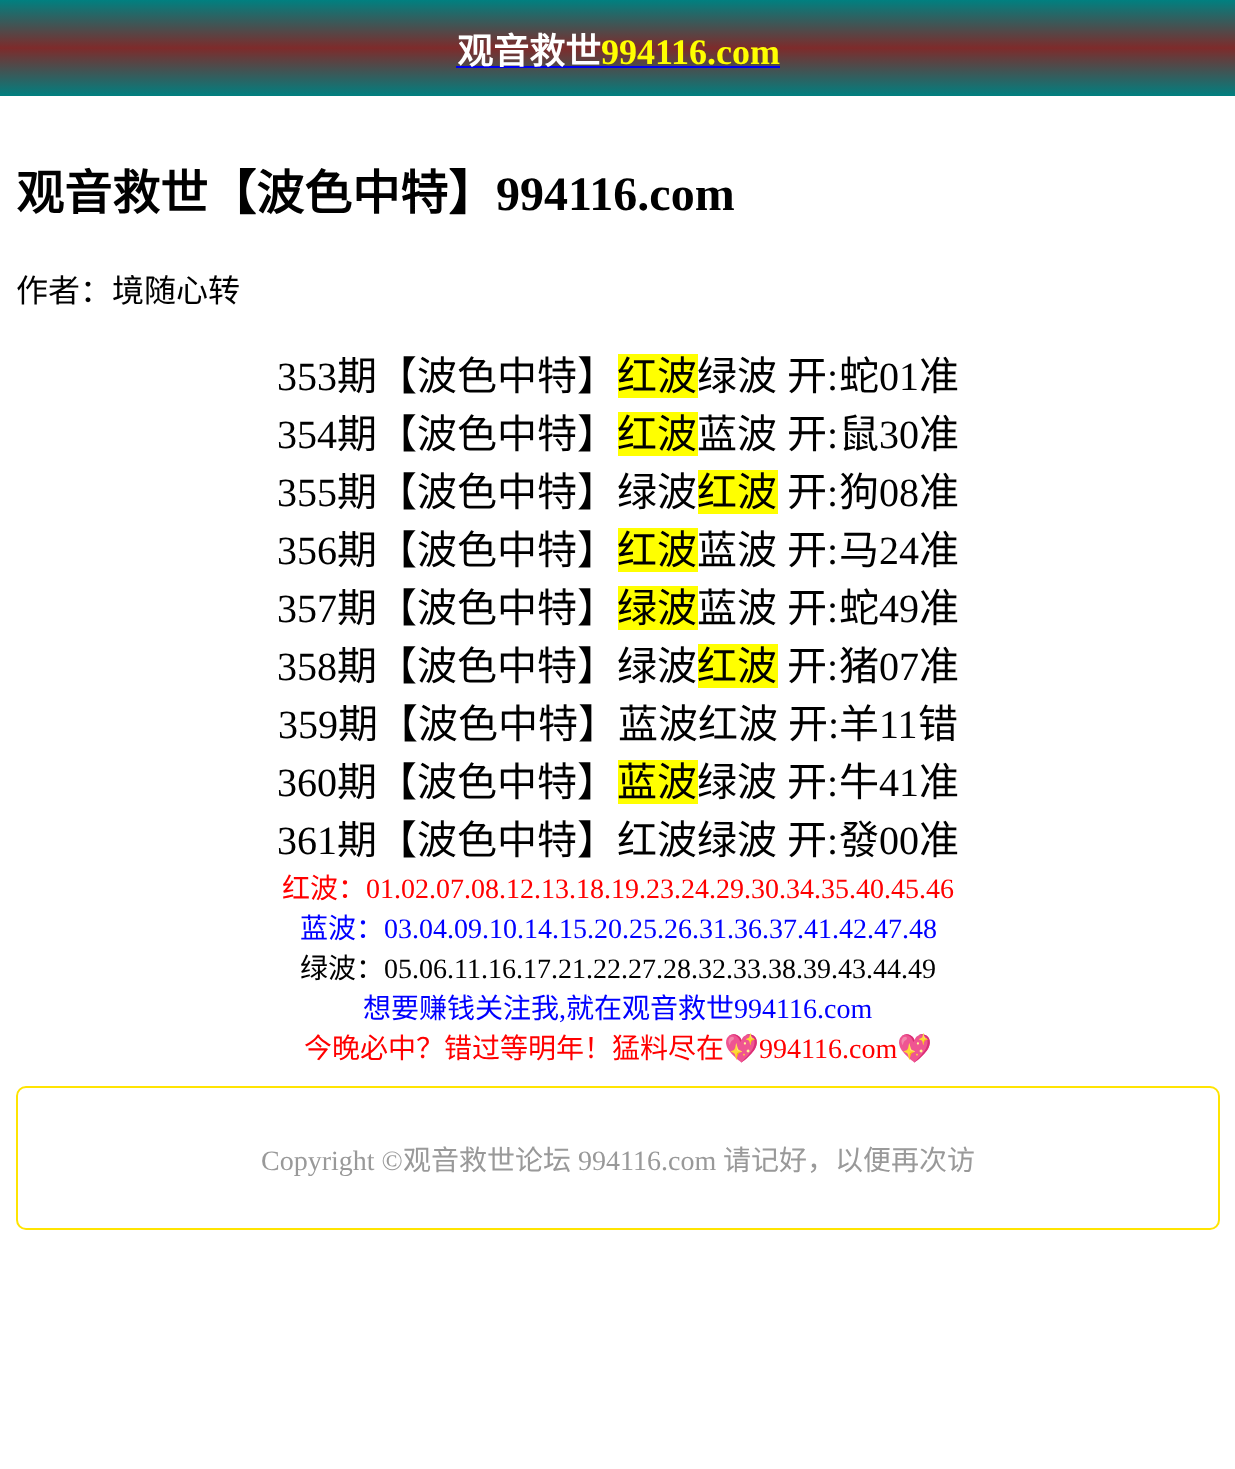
<!DOCTYPE html>
<meta charset="utf-8">
<style>body { margin: 0 } canvas { display: block }</style>
<canvas id="canvas" width="1235" height="1469"></canvas>
<script type="module">
  const canvas = document.getElementById("canvas");
  const ctx = canvas.getContext("2d");
  ctx.miterLimit = 4;
  ctx.fontKerning = "normal";
  let gradient;

  ctx.fillStyle = "#ffffff";
  ctx.fillRect(0, 0, 1235, 1469);
  gradient = ctx.createLinearGradient(618, 0, 618, 96);
  gradient.addColorStop(0, "#008080");
  gradient.addColorStop(0.5, "#7e2b2b");
  gradient.addColorStop(1, "#008080");
  ctx.fillStyle = gradient;
  ctx.fillRect(0, 0, 1235, 96);
  ctx.fillStyle = "#0000ee";
  ctx.fillRect(456, 66, 324, 2);
  ctx.font = "bold 36px Noto Sans CJK SC";
  ctx.fillStyle = "#ffffff";
  ctx.fillText("观音救世", 457, 64);
  ctx.font = "bold 36px Liberation Serif";
  ctx.fillStyle = "#ffff00";
  ctx.fillText("994116.com", 601, 64);
  ctx.font = "bold 48px Noto Sans CJK SC";
  ctx.fillStyle = "#000000";
  ctx.fillText("观音救世【波色中特】", 16, 210);
  ctx.font = "bold 48px Liberation Serif";
  ctx.fillText("994116.com", 496, 210);
  ctx.font = "32px Noto Sans CJK SC";
  ctx.fillText("作者：境随心转", 16, 302);
  ctx.font = "40px Liberation Serif";
  ctx.fillText("353", 277, 390);
  ctx.font = "40px Noto Sans CJK SC";
  ctx.fillText("期【波色中特】", 337, 390);
  ctx.fillStyle = "#ffff00";
  ctx.fillRect(618, 354, 80, 44);
  ctx.fillStyle = "#000000";
  ctx.fillText("红波", 617, 390);
  ctx.wordSpacing = "1px";
  ctx.fillText("绿波 开", 697, 390);
  ctx.wordSpacing = "0px";
  ctx.font = "40px Liberation Serif";
  ctx.fillText(":", 827, 390);
  ctx.font = "40px Noto Sans CJK SC";
  ctx.fillText("蛇", 839, 390);
  ctx.font = "40px Liberation Serif";
  ctx.fillText("01", 879, 390);
  ctx.font = "40px Noto Sans CJK SC";
  ctx.fillText("准", 919, 390);
  ctx.font = "40px Liberation Serif";
  ctx.fillText("354", 277, 448);
  ctx.font = "40px Noto Sans CJK SC";
  ctx.fillText("期【波色中特】", 337, 448);
  ctx.fillStyle = "#ffff00";
  ctx.fillRect(618, 412, 80, 44);
  ctx.fillStyle = "#000000";
  ctx.fillText("红波", 617, 448);
  ctx.wordSpacing = "1px";
  ctx.fillText("蓝波 开", 697, 448);
  ctx.wordSpacing = "0px";
  ctx.font = "40px Liberation Serif";
  ctx.fillText(":", 827, 448);
  ctx.font = "40px Noto Sans CJK SC";
  ctx.fillText("鼠", 839, 448);
  ctx.font = "40px Liberation Serif";
  ctx.fillText("30", 879, 448);
  ctx.font = "40px Noto Sans CJK SC";
  ctx.fillText("准", 919, 448);
  ctx.font = "40px Liberation Serif";
  ctx.fillText("355", 277, 506);
  ctx.font = "40px Noto Sans CJK SC";
  ctx.fillText("期【波色中特】绿波", 337, 506);
  ctx.fillStyle = "#ffff00";
  ctx.fillRect(698, 470, 80, 44);
  ctx.fillStyle = "#000000";
  ctx.fillText("红波", 697, 506);
  ctx.fillText("开", 787, 506);
  ctx.font = "40px Liberation Serif";
  ctx.fillText(":", 827, 506);
  ctx.font = "40px Noto Sans CJK SC";
  ctx.fillText("狗", 839, 506);
  ctx.font = "40px Liberation Serif";
  ctx.fillText("08", 879, 506);
  ctx.font = "40px Noto Sans CJK SC";
  ctx.fillText("准", 919, 506);
  ctx.font = "40px Liberation Serif";
  ctx.fillText("356", 277, 564);
  ctx.font = "40px Noto Sans CJK SC";
  ctx.fillText("期【波色中特】", 337, 564);
  ctx.fillStyle = "#ffff00";
  ctx.fillRect(618, 528, 80, 44);
  ctx.fillStyle = "#000000";
  ctx.fillText("红波", 617, 564);
  ctx.wordSpacing = "1px";
  ctx.fillText("蓝波 开", 697, 564);
  ctx.wordSpacing = "0px";
  ctx.font = "40px Liberation Serif";
  ctx.fillText(":", 827, 564);
  ctx.font = "40px Noto Sans CJK SC";
  ctx.fillText("马", 839, 564);
  ctx.font = "40px Liberation Serif";
  ctx.fillText("24", 879, 564);
  ctx.font = "40px Noto Sans CJK SC";
  ctx.fillText("准", 919, 564);
  ctx.font = "40px Liberation Serif";
  ctx.fillText("357", 277, 622);
  ctx.font = "40px Noto Sans CJK SC";
  ctx.fillText("期【波色中特】", 337, 622);
  ctx.fillStyle = "#ffff00";
  ctx.fillRect(618, 586, 80, 44);
  ctx.fillStyle = "#000000";
  ctx.fillText("绿波", 617, 622);
  ctx.wordSpacing = "1px";
  ctx.fillText("蓝波 开", 697, 622);
  ctx.wordSpacing = "0px";
  ctx.font = "40px Liberation Serif";
  ctx.fillText(":", 827, 622);
  ctx.font = "40px Noto Sans CJK SC";
  ctx.fillText("蛇", 839, 622);
  ctx.font = "40px Liberation Serif";
  ctx.fillText("49", 879, 622);
  ctx.font = "40px Noto Sans CJK SC";
  ctx.fillText("准", 919, 622);
  ctx.font = "40px Liberation Serif";
  ctx.fillText("358", 277, 680);
  ctx.font = "40px Noto Sans CJK SC";
  ctx.fillText("期【波色中特】绿波", 337, 680);
  ctx.fillStyle = "#ffff00";
  ctx.fillRect(698, 644, 80, 44);
  ctx.fillStyle = "#000000";
  ctx.fillText("红波", 697, 680);
  ctx.fillText("开", 787, 680);
  ctx.font = "40px Liberation Serif";
  ctx.fillText(":", 827, 680);
  ctx.font = "40px Noto Sans CJK SC";
  ctx.fillText("猪", 839, 680);
  ctx.font = "40px Liberation Serif";
  ctx.fillText("07", 879, 680);
  ctx.font = "40px Noto Sans CJK SC";
  ctx.fillText("准", 919, 680);
  ctx.font = "40px Liberation Serif";
  ctx.fillText("359", 278, 738);
  ctx.wordSpacing = "1px";
  ctx.font = "40px Noto Sans CJK SC";
  ctx.fillText("期【波色中特】蓝波红波 开", 338, 738);
  ctx.wordSpacing = "0px";
  ctx.font = "40px Liberation Serif";
  ctx.fillText(":", 828, 738);
  ctx.font = "40px Noto Sans CJK SC";
  ctx.fillText("羊", 839, 738);
  ctx.font = "40px Liberation Serif";
  ctx.fillText("11", 879, 738);
  ctx.font = "40px Noto Sans CJK SC";
  ctx.fillText("错", 918, 738);
  ctx.font = "40px Liberation Serif";
  ctx.fillText("360", 277, 796);
  ctx.font = "40px Noto Sans CJK SC";
  ctx.fillText("期【波色中特】", 337, 796);
  ctx.fillStyle = "#ffff00";
  ctx.fillRect(618, 760, 80, 44);
  ctx.fillStyle = "#000000";
  ctx.fillText("蓝波", 617, 796);
  ctx.wordSpacing = "1px";
  ctx.fillText("绿波 开", 697, 796);
  ctx.wordSpacing = "0px";
  ctx.font = "40px Liberation Serif";
  ctx.fillText(":", 827, 796);
  ctx.font = "40px Noto Sans CJK SC";
  ctx.fillText("牛", 839, 796);
  ctx.font = "40px Liberation Serif";
  ctx.fillText("41", 879, 796);
  ctx.font = "40px Noto Sans CJK SC";
  ctx.fillText("准", 919, 796);
  ctx.font = "40px Liberation Serif";
  ctx.fillText("361", 277, 854);
  ctx.wordSpacing = "1px";
  ctx.font = "40px Noto Sans CJK SC";
  ctx.fillText("期【波色中特】红波绿波 开", 337, 854);
  ctx.wordSpacing = "0px";
  ctx.font = "40px Liberation Serif";
  ctx.fillText(":", 827, 854);
  ctx.font = "40px Noto Sans CJK SC";
  ctx.fillText("發", 839, 854);
  ctx.font = "40px Liberation Serif";
  ctx.fillText("00", 879, 854);
  ctx.font = "40px Noto Sans CJK SC";
  ctx.fillText("准", 919, 854);
  ctx.font = "28px Noto Sans CJK SC";
  ctx.fillStyle = "#ff0000";
  ctx.fillText("红波：", 282, 898);
  ctx.font = "28px Liberation Serif";
  ctx.fillText("01.02.07.08.12.13.18.19.23.24.29.30.34.35.40.45.46", 366, 898);
  ctx.font = "28px Noto Sans CJK SC";
  ctx.fillStyle = "#0000ff";
  ctx.fillText("蓝波：", 300, 938);
  ctx.font = "28px Liberation Serif";
  ctx.fillText("03.04.09.10.14.15.20.25.26.31.36.37.41.42.47.48", 384, 938);
  ctx.font = "28px Noto Sans CJK SC";
  ctx.fillStyle = "#000000";
  ctx.fillText("绿波：", 300, 978);
  ctx.font = "28px Liberation Serif";
  ctx.fillText("05.06.11.16.17.21.22.27.28.32.33.38.39.43.44.49", 384, 978);
  ctx.font = "28px Noto Sans CJK SC";
  ctx.fillStyle = "#0000ff";
  ctx.fillText("想要赚钱关注我", 363, 1018);
  ctx.font = "28px Liberation Serif";
  ctx.fillText(",", 559, 1018);
  ctx.font = "28px Noto Sans CJK SC";
  ctx.fillText("就在观音救世", 566, 1018);
  ctx.font = "28px Liberation Serif";
  ctx.fillText("994116.com", 734, 1018);
  ctx.font = "28px Noto Sans CJK SC";
  ctx.fillStyle = "#ff0000";
  ctx.fillText("今晚必中？错过等明年！猛料尽在", 304, 1058);
  ctx.font = "28px Noto Color Emoji";
  ctx.fillText("💖", 724, 1058);
  ctx.font = "28px Liberation Serif";
  ctx.fillText("994116.com", 759, 1058);
  ctx.font = "28px Noto Color Emoji";
  ctx.fillText("💖", 897, 1058);
  ctx.beginPath();
  ctx.roundRect(17, 1087, 1202, 142, 9);
  ctx.strokeStyle = "#ffe401";
  ctx.lineWidth = 2;
  ctx.stroke();
  ctx.font = "28px Liberation Serif";
  ctx.fillStyle = "#999999";
  ctx.fillText("Copyright ©", 261, 1170);
  ctx.font = "28px Noto Sans CJK SC";
  ctx.fillText("观音救世论坛", 403, 1170);
  ctx.font = "28px Liberation Serif";
  ctx.fillText("994116.com", 578, 1170);
  ctx.font = "28px Noto Sans CJK SC";
  ctx.fillText("请记好，以便再次访", 723, 1170);
</script>
